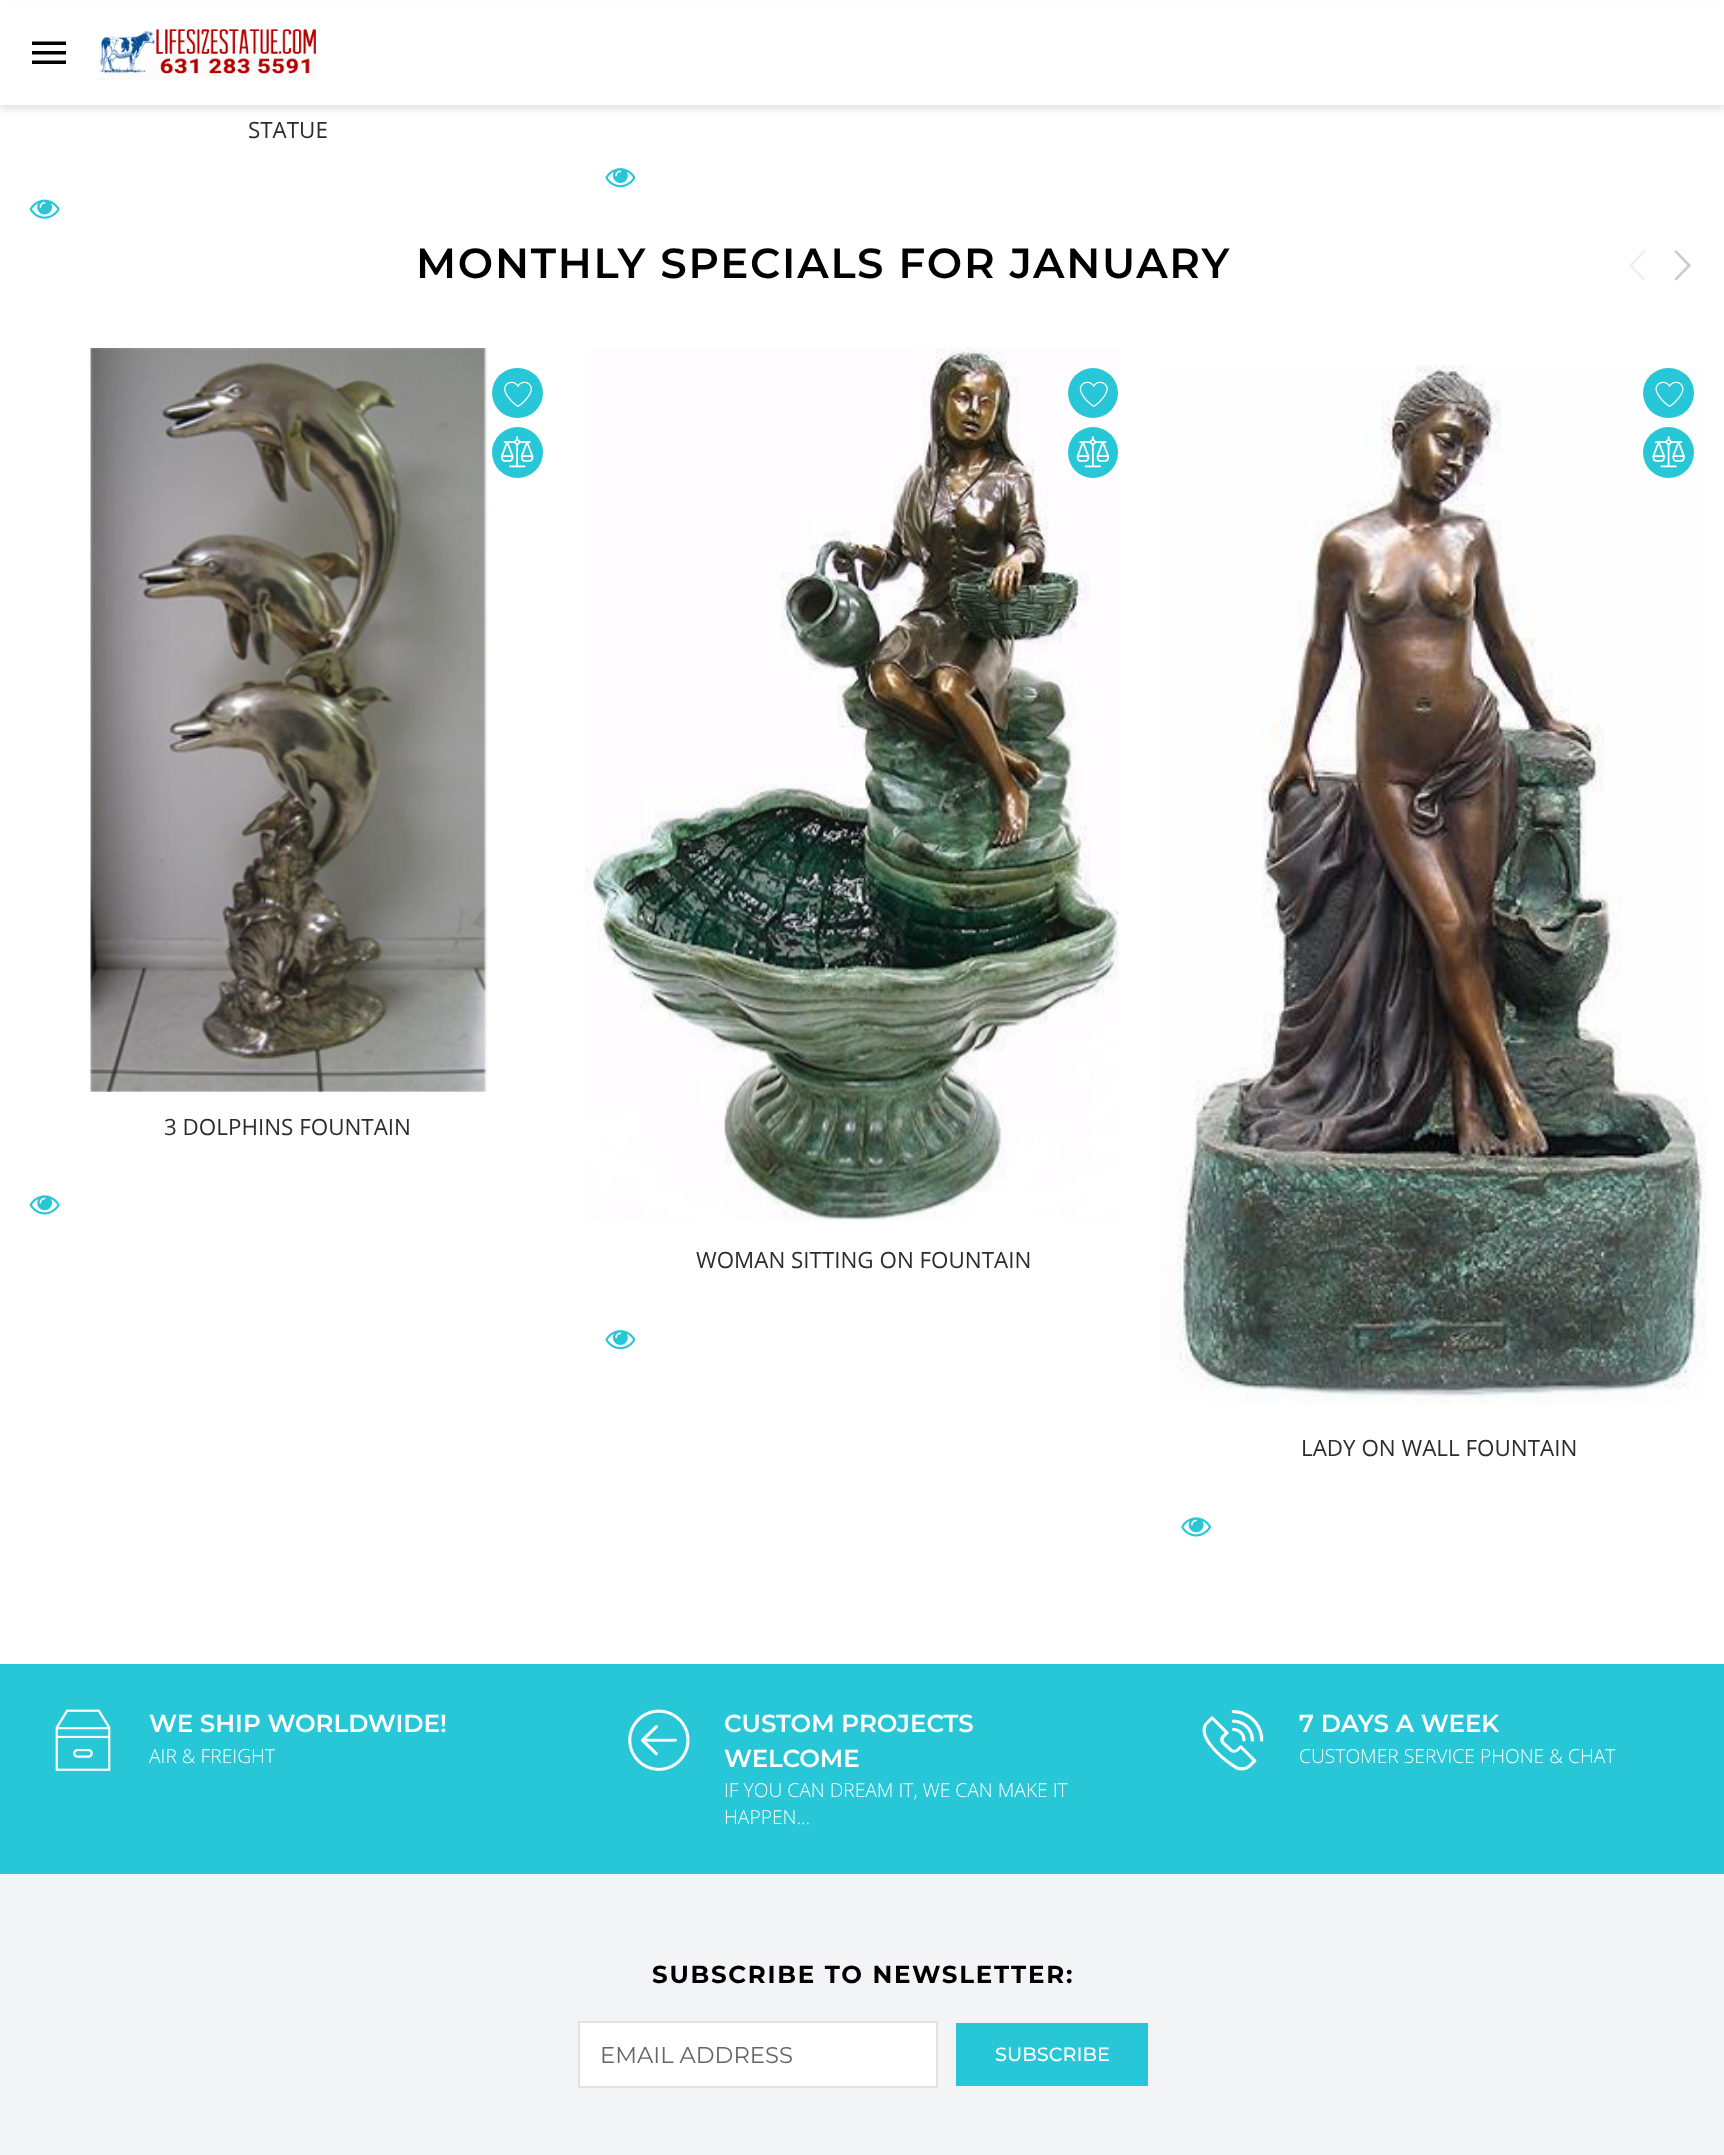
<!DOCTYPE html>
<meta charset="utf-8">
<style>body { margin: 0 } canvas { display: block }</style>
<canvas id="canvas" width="1724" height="2155"></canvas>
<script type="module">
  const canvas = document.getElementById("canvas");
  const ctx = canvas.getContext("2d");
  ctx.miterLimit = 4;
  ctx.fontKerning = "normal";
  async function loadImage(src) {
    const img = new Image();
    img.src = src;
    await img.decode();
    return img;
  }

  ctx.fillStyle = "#ffffff";
  ctx.fillRect(0, 0, 1724, 2155);
  ctx.fillStyle = "rgba(0, 0, 0, 0.1)";
  ctx.filter = "blur(3.5px)";
  ctx.beginPath();
  ctx.rect(0, 5, 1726, 105);
  ctx.fill();
  ctx.filter = "none";
  ctx.fillStyle = "#ffffff";
  ctx.fillRect(0, 1, 1724, 104);
  ctx.fillStyle = "#000000";
  ctx.beginPath();
  ctx.moveTo(32, 41.5);
  ctx.lineTo(66, 41.5);
  ctx.lineTo(66, 45);
  ctx.lineTo(32, 45);
  ctx.closePath();
  ctx.moveTo(32, 54.5);
  ctx.lineTo(32, 51);
  ctx.lineTo(66, 51);
  ctx.lineTo(66, 54.5);
  ctx.closePath();
  ctx.moveTo(32, 64);
  ctx.lineTo(32, 60.5);
  ctx.lineTo(66, 60.5);
  ctx.lineTo(66, 64);
  ctx.closePath();
  ctx.fill();
  ctx.drawImage(await loadImage("img1.png"), 98, 29, 218, 52);
  ctx.font = "22.4px Open Sans";
  ctx.fillStyle = "#2d2c2c";
  ctx.fillText("STATUE", 248, 138);
  ctx.drawImage(await loadImage("img2.png"), 29, 199, 31, 20);
  ctx.drawImage(await loadImage("img3.png"), 605, 168, 31, 20);
  ctx.letterSpacing = "1.75px";
  ctx.font = "600 42px Montserrat";
  ctx.fillStyle = "#000000";
  ctx.fillText("MONTHLY SPECIALS FOR JANUARY", 416, 278);
  ctx.drawImage(await loadImage("img4.png"), 1629, 250, 16, 31);
  ctx.drawImage(await loadImage("img5.png"), 1674, 250, 17, 31);
  ctx.drawImage(await loadImage("img6.png"), 89, 348, 399, 744);
  ctx.fillStyle = "#27c7d8";
  ctx.beginPath();
  ctx.roundRect(492, 368, 51, 50, 25);
  ctx.fill();
  ctx.drawImage(await loadImage("img7.png"), 504, 381, 28, 26);
  ctx.beginPath();
  ctx.arc(517.5, 452.5, 25.5, 0, Math.PI * 2);
  ctx.fill();
  ctx.drawImage(await loadImage("img8.png"), 500, 436, 34, 32);
  ctx.letterSpacing = "0px";
  ctx.font = "22.4px Open Sans";
  ctx.fillStyle = "#2d2c2c";
  ctx.fillText("3 DOLPHINS FOUNTAIN", 164, 1135);
  ctx.drawImage(await loadImage("img9.png"), 29, 1195, 31, 20);
  ctx.drawImage(await loadImage("img10.png"), 584, 348, 535, 873);
  ctx.fillStyle = "#27c7d8";
  ctx.beginPath();
  ctx.arc(1093, 393, 25, 0, Math.PI * 2);
  ctx.fill();
  ctx.drawImage(await loadImage("img11.png"), 1079, 381, 29, 26);
  ctx.beginPath();
  ctx.roundRect(1068, 427, 50, 51, 25);
  ctx.fill();
  ctx.drawImage(await loadImage("img12.png"), 1076, 436, 34, 32);
  ctx.fillStyle = "#2d2c2c";
  ctx.fillText("WOMAN SITTING ON FOUNTAIN", 696, 1268);
  ctx.drawImage(await loadImage("img3.png"), 605, 1330, 31, 20);
  ctx.drawImage(await loadImage("img13.png"), 1160, 365, 547, 1040);
  ctx.fillStyle = "#27c7d8";
  ctx.beginPath();
  ctx.roundRect(1643, 368, 51, 50, 25);
  ctx.fill();
  ctx.drawImage(await loadImage("img14.png"), 1655, 381, 29, 26);
  ctx.beginPath();
  ctx.arc(1668.5, 452.5, 25.5, 0, Math.PI * 2);
  ctx.fill();
  ctx.drawImage(await loadImage("img15.png"), 1652, 436, 33, 32);
  ctx.fillStyle = "#2d2c2c";
  ctx.fillText("LADY ON WALL FOUNTAIN", 1301, 1456);
  ctx.drawImage(await loadImage("img16.png"), 1181, 1517, 30, 20);
  ctx.fillStyle = "#27c7d8";
  ctx.fillRect(0, 1664, 1724, 210);
  ctx.drawImage(await loadImage("img17.png"), 55, 1709, 56, 62);
  ctx.font = "600 24.5px Montserrat";
  ctx.fillStyle = "#ffffff";
  ctx.fillText("WE SHIP WORLDWIDE!", 149, 1732);
  ctx.font = "300 19.25px Open Sans";
  ctx.fillText("AIR & FREIGHT", 149, 1763);
  ctx.drawImage(await loadImage("img18.png"), 628, 1709, 62, 62);
  ctx.font = "600 24.5px Montserrat";
  ctx.fillText("CUSTOM PROJECTS", 724, 1732);
  ctx.fillText("WELCOME", 724, 1767);
  ctx.font = "300 19.25px Open Sans";
  ctx.fillText("IF YOU CAN DREAM IT, WE CAN MAKE IT", 724, 1797);
  ctx.fillText("HAPPEN...", 724, 1824);
  ctx.drawImage(await loadImage("img19.png"), 1202, 1710, 62, 61);
  ctx.font = "600 24.5px Montserrat";
  ctx.fillText("7 DAYS A WEEK", 1299, 1732);
  ctx.font = "300 19.25px Open Sans";
  ctx.fillText("CUSTOMER SERVICE PHONE & CHAT", 1299, 1763);
  ctx.fillStyle = "#f3f4f6";
  ctx.fillRect(0, 1874, 1724, 281);
  ctx.letterSpacing = "1.75px";
  ctx.font = "bold 24.5px Montserrat";
  ctx.fillStyle = "#000000";
  ctx.fillText("SUBSCRIBE TO NEWSLETTER:", 652, 1983);
  ctx.fillStyle = "#ffffff";
  ctx.beginPath();
  ctx.rect(579, 2022, 358, 65);
  ctx.fill();
  ctx.strokeStyle = "#e2e2e2";
  ctx.lineWidth = 2;
  ctx.stroke();
  ctx.letterSpacing = "0px";
  ctx.font = "22.75px Montserrat";
  ctx.fillStyle = "#656565";
  ctx.fillText("EMAIL ADDRESS", 600, 2063);
  ctx.fillStyle = "#27c7d8";
  ctx.fillRect(956, 2023, 192, 63);
  ctx.font = "500 19.25px Montserrat";
  ctx.fillStyle = "#ffffff";
  ctx.fillText("SUBSCRIBE", 995, 2061);
</script>
